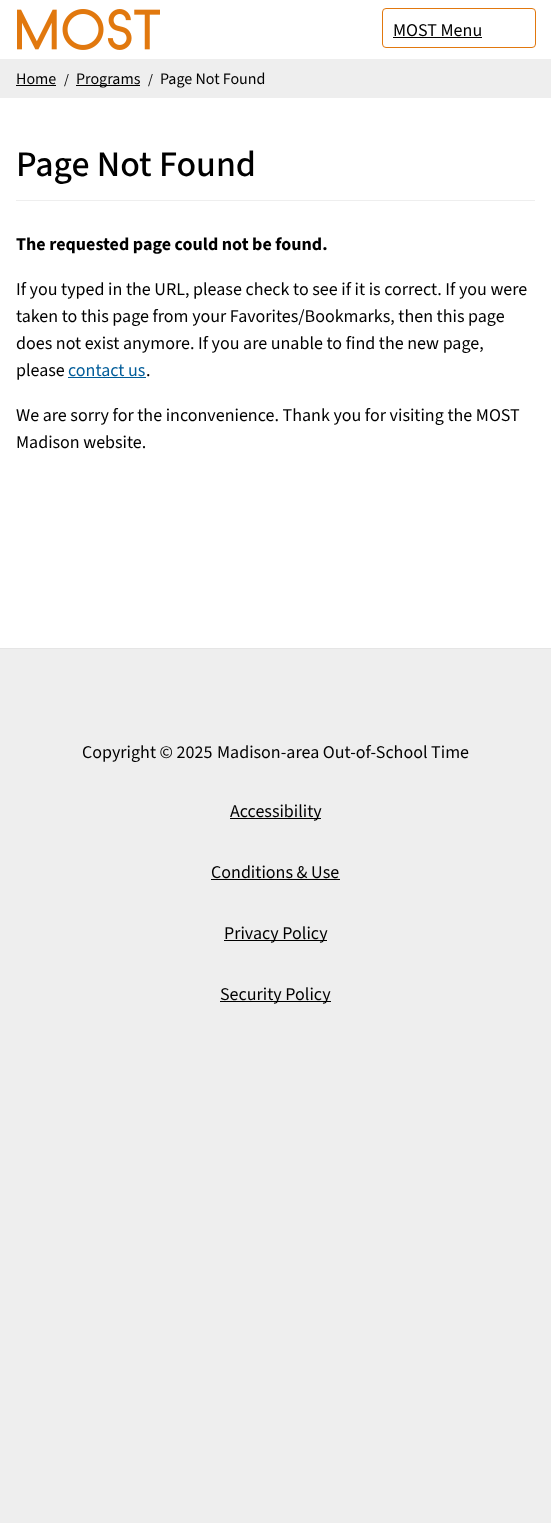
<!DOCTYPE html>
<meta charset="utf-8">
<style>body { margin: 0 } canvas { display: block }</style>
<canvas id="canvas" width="551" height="1523"></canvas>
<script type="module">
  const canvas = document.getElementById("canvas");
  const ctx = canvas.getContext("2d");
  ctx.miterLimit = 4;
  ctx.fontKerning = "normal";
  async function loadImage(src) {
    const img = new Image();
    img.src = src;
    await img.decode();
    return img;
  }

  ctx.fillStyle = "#eeeeee";
  ctx.fillRect(0, 0, 551, 1523);
  ctx.fillStyle = "#ffffff";
  ctx.fillRect(0, 0, 551, 648);
  ctx.drawImage(await loadImage("img1.png"), 17, 9, 143, 41);
  ctx.beginPath();
  ctx.roundRect(382.5, 8.5, 153, 39, 3.5);
  ctx.strokeStyle = "#e1780e";
  ctx.stroke();
  ctx.font = "18px 'Source Sans 3'";
  ctx.fillStyle = "#000000";
  ctx.fillText("MOST Menu", 393, 36);
  ctx.fillRect(393, 37, 89, 1);
  ctx.fillStyle = "#eeeeee";
  ctx.fillRect(0, 59, 551, 39);
  ctx.font = "16px 'Source Sans 3'";
  ctx.fillStyle = "#000000";
  ctx.fillText("Home", 16, 84);
  ctx.fillRect(16, 85, 40, 1);
  ctx.font = "14px 'Source Sans 3'";
  ctx.fillText("/", 64, 84);
  ctx.fillRect(76, 85, 64, 1);
  ctx.font = "16px 'Source Sans 3'";
  ctx.fillText("Programs", 76, 84);
  ctx.font = "14px 'Source Sans 3'";
  ctx.fillText("/", 148, 84);
  ctx.font = "16px 'Source Sans 3'";
  ctx.fillText("Page Not Found", 160, 84);
  ctx.fillStyle = "#eeeeee";
  ctx.fillRect(16, 200, 519, 1);
  ctx.font = "500 36px 'Source Sans 3'";
  ctx.fillStyle = "#000000";
  ctx.fillText("Page Not Found", 16, 176);
  ctx.font = "bold 18px 'Source Sans 3'";
  ctx.fillText("The requested page could not be found.", 16, 250);
  ctx.font = "18px 'Source Sans 3'";
  ctx.fillText("If you typed in the URL, please check to see if it is correct. If you were", 16, 295);
  ctx.fillText("taken to this page from your Favorites/Bookmarks, then this page", 16, 322);
  ctx.fillText("does not exist anymore. If you are unable to find the new page,", 16, 349);
  ctx.fillText("please", 16, 376);
  ctx.fillStyle = "#005c99";
  ctx.fillText("contact us", 68, 376);
  ctx.fillRect(68, 377, 78, 1);
  ctx.fillStyle = "#000000";
  ctx.fillText(".", 146, 376);
  ctx.fillText("We are sorry for the inconvenience. Thank you for visiting the MOST", 16, 421);
  ctx.fillText("Madison website.", 16, 448);
  ctx.fillStyle = "#e5e5e5";
  ctx.fillRect(0, 648, 551, 1);
  ctx.fillStyle = "#000000";
  ctx.fillText("Copyright © 2025", 82, 758);
  ctx.fillText("Madison-area Out-of-School Time", 217, 758);
  ctx.fillRect(230, 818, 91, 1);
  ctx.fillText("Accessibility", 230, 817);
  ctx.fillText("Conditions & Use", 211, 878);
  ctx.fillRect(211, 879, 129, 1);
  ctx.fillRect(224, 940, 103, 1);
  ctx.fillText("Privacy Policy", 224, 939);
  ctx.fillRect(220, 1001, 111, 1);
  ctx.fillText("Security Policy", 220, 1000);
</script>
